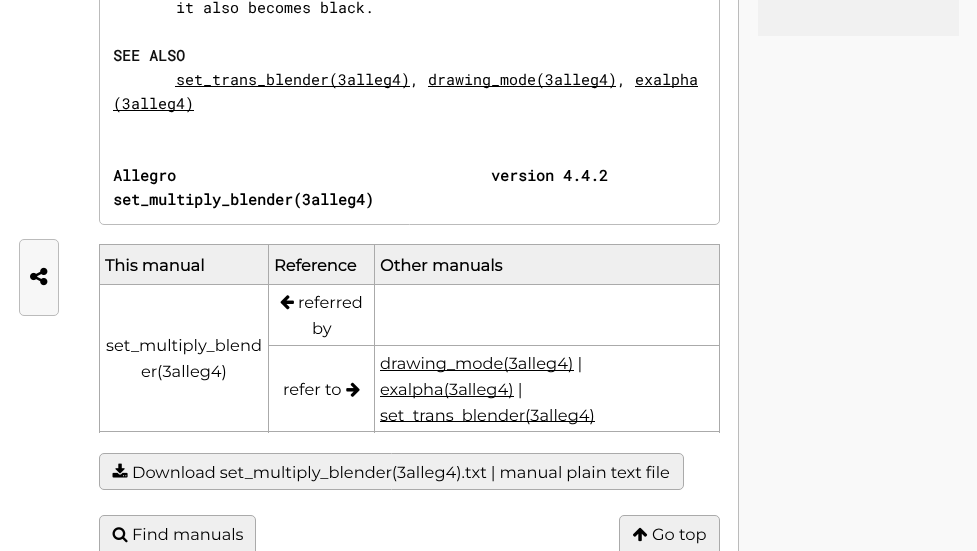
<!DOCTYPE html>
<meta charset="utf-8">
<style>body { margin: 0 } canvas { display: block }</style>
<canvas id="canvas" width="977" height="551"></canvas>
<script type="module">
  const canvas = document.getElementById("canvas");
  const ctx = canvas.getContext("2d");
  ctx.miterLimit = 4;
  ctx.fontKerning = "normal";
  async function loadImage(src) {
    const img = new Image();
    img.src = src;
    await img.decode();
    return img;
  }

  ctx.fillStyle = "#f9f9f9";
  ctx.fillRect(0, 0, 977, 551);
  ctx.fillStyle = "#ffffff";
  ctx.fillRect(0, 0, 738, 551);
  ctx.fillStyle = "#bbbbbb";
  ctx.fillRect(738, 0, 1, 551);
  ctx.fillStyle = "#f1f1f1";
  ctx.fillRect(758, 0, 201, 36);
  ctx.fillStyle = "#f7f7f7";
  ctx.beginPath();
  ctx.roundRect(19.5, 239.5, 39, 76, 4.5);
  ctx.fill();
  ctx.strokeStyle = "#bbbbbb";
  ctx.stroke();
  ctx.drawImage(await loadImage("img1.png"), 30, 267, 18, 19);
  ctx.beginPath();
  ctx.roundRect(99.5, -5.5, 620, 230, 4.5);
  ctx.stroke();
  ctx.font = "15px Roboto Mono";
  ctx.fillStyle = "#000000";
  ctx.fillText("it also becomes black.", 176, 13);
  ctx.font = "bold 15px Roboto Mono";
  ctx.fillStyle = "#111111";
  ctx.fillText("SEE ALSO", 113, 61);
  ctx.fillStyle = "#000000";
  ctx.fillRect(175, 86, 235, 1);
  ctx.font = "15px Roboto Mono";
  ctx.fillText("set_trans_blender(3alleg4),", 176, 85);
  ctx.fillRect(428, 86, 188, 1);
  ctx.fillText("drawing_mode(3alleg4),", 428, 85);
  ctx.fillRect(635, 86, 63, 1);
  ctx.fillText("exalpha", 635, 85);
  ctx.fillRect(113, 110, 81, 1);
  ctx.fillText("(3alleg4)", 113, 109);
  ctx.font = "bold 15px Roboto Mono";
  ctx.fillText("Allegro                                   version 4.4.2", 113, 181);
  ctx.fillText("set_multiply_blender(3alleg4)", 113, 205);
  ctx.fillStyle = "#efefef";
  ctx.fillRect(100, 245, 619, 39);
  ctx.fillStyle = "#aaaaaa";
  ctx.fillRect(374, 244, 346, 1);
  ctx.fillRect(374, 284, 346, 1);
  ctx.fillRect(374, 345, 346, 1);
  ctx.fillRect(719, 345, 1, 88);
  ctx.fillRect(374, 431, 346, 1);
  ctx.fillRect(374, 345, 1, 88);
  ctx.fillRect(268, 345, 107, 1);
  ctx.fillRect(374, 284, 1, 62);
  ctx.fillRect(268, 284, 107, 1);
  ctx.fillRect(374, 244, 1, 41);
  ctx.fillRect(268, 244, 107, 1);
  ctx.fillRect(268, 431, 107, 1);
  ctx.fillRect(268, 345, 1, 88);
  ctx.fillRect(268, 284, 1, 62);
  ctx.fillRect(99, 284, 170, 1);
  ctx.fillRect(268, 244, 1, 41);
  ctx.fillRect(99, 244, 170, 1);
  ctx.fillRect(99, 431, 170, 1);
  ctx.fillRect(99, 284, 1, 149);
  ctx.fillRect(99, 244, 1, 41);
  ctx.font = "bold 16.25px Montserrat";
  ctx.fillStyle = "#000000";
  ctx.fillText("This manual", 105, 271);
  ctx.fillText("Reference", 274, 271);
  ctx.fillStyle = "#aaaaaa";
  ctx.fillRect(719, 284, 1, 62);
  ctx.fillRect(719, 244, 1, 41);
  ctx.fillStyle = "#000000";
  ctx.fillText("Other manuals", 380, 271);
  ctx.drawImage(await loadImage("img2.png"), 280, 295, 14, 15);
  ctx.font = "100 16.25px Montserrat";
  ctx.fillText("referred", 298, 308);
  ctx.fillText("by", 312, 334);
  ctx.fillText("set_multiply_blend", 106, 351);
  ctx.fillText("er(3alleg4)", 141, 377);
  ctx.fillText("refer to", 283, 395);
  ctx.drawImage(await loadImage("img3.png"), 346, 382, 14, 15);
  ctx.fillRect(380, 370, 194, 1);
  ctx.fillText("drawing_mode(3alleg4) |", 380, 369);
  ctx.fillRect(380, 396, 134, 1);
  ctx.fillText("exalpha(3alleg4) |", 380, 395);
  ctx.fillRect(380, 421, 215, 1);
  ctx.fillText("set_trans_blender(3alleg4)", 380, 421);
  ctx.fillStyle = "#efefef";
  ctx.beginPath();
  ctx.roundRect(99.5, 453.5, 584, 36, 4.5);
  ctx.fill();
  ctx.strokeStyle = "#aaaaaa";
  ctx.stroke();
  ctx.drawImage(await loadImage("img4.png"), 112, 463, 16, 15);
  ctx.wordSpacing = "-0.25px";
  ctx.fillStyle = "#000000";
  ctx.fillText("Download set_multiply_blender(3alleg4).txt | manual plain text file", 132, 478);
  ctx.fillStyle = "#efefef";
  ctx.beginPath();
  ctx.roundRect(99.5, 515.5, 156, 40, 4.5);
  ctx.fill();
  ctx.stroke();
  ctx.drawImage(await loadImage("img5.png"), 112, 527, 16, 16);
  ctx.wordSpacing = "0px";
  ctx.fillStyle = "#000000";
  ctx.fillText("Find manuals", 132, 540);
  ctx.fillStyle = "#efefef";
  ctx.beginPath();
  ctx.roundRect(619.5, 515.5, 100, 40, 4.5);
  ctx.fill();
  ctx.stroke();
  ctx.drawImage(await loadImage("img6.png"), 633, 527, 15, 15);
  ctx.fillStyle = "#000000";
  ctx.fillText("Go top", 652, 540);
</script>
